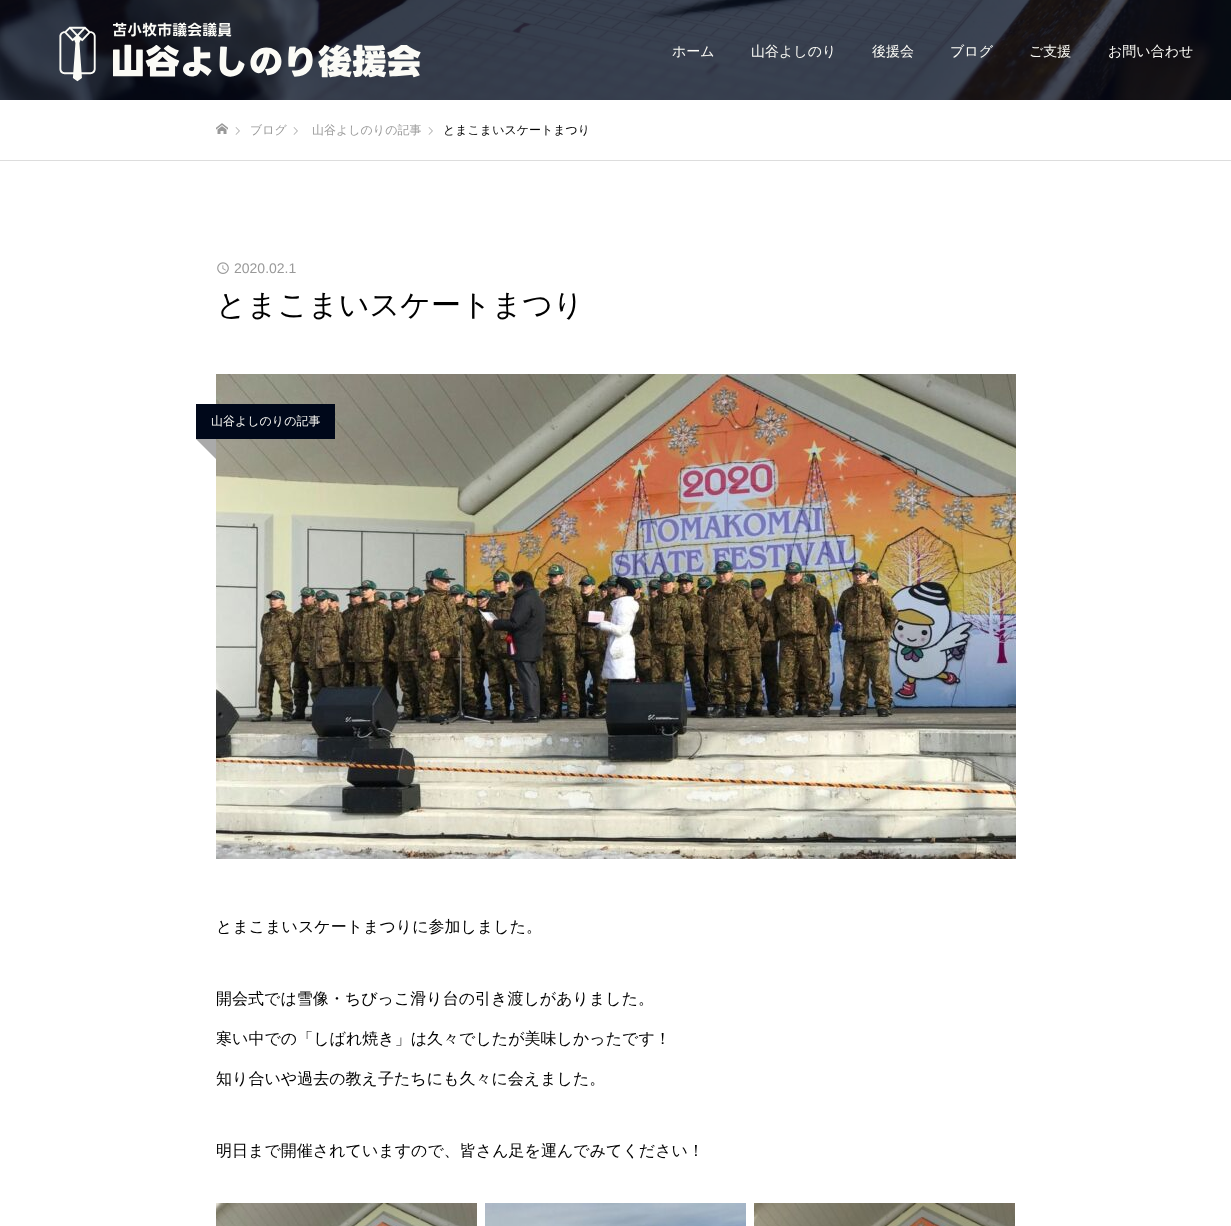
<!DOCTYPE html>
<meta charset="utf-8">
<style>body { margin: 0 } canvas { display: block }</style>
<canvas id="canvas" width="1231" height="1226"></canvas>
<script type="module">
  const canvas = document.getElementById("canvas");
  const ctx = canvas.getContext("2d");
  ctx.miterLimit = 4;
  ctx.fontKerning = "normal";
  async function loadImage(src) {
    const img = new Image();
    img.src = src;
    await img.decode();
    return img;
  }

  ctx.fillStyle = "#ffffff";
  ctx.fillRect(0, 0, 1231, 1226);
  ctx.drawImage(await loadImage("img1.png"), 0, 0, 1231, 100);
  ctx.drawImage(await loadImage("img2.png"), 59, 22, 362, 60);
  ctx.font = "500 14px WenQuanYi Zen Hei";
  ctx.fillStyle = "#fbfbf6";
  ctx.fillText("ホーム", 672, 56);
  ctx.fillText("山谷よしのり", 751, 56);
  ctx.fillText("後援会", 872, 56);
  ctx.fillText("ブログ", 950, 56);
  ctx.fillText("ご支援", 1029, 56);
  ctx.fillText("お問い合わせ", 1108, 56);
  ctx.fillStyle = "#dddddd";
  ctx.fillRect(0, 160, 1231, 1);
  ctx.drawImage(await loadImage("img3.png"), 216, 123, 12, 11);
  ctx.drawImage(await loadImage("img4.png"), 235, 127, 5, 8);
  ctx.font = "500 12px WenQuanYi Zen Hei";
  ctx.fillStyle = "#999999";
  ctx.fillText("ブログ", 250, 134);
  ctx.drawImage(await loadImage("img4.png"), 293, 127, 5, 8);
  ctx.fillText("山谷よしのりの記事", 312, 134);
  ctx.drawImage(await loadImage("img4.png"), 428, 127, 5, 8);
  ctx.fillStyle = "#000000";
  ctx.fillText("とまこまいスケートまつり", 443, 134);
  ctx.drawImage(await loadImage("img5.png"), 217, 262, 12, 12);
  ctx.font = "14px Liberation Sans";
  ctx.fillStyle = "#999999";
  ctx.fillText("2020.02.1", 234, 273);
  ctx.font = "500 30px WenQuanYi Zen Hei";
  ctx.fillStyle = "#000000";
  ctx.fillText("とまこまいスケートまつり", 216, 315);
  ctx.drawImage(await loadImage("img6.png"), 216, 374, 800, 485);
  ctx.fillStyle = "#00081a";
  ctx.fillRect(196, 404, 139, 35);
  ctx.font = "500 12px WenQuanYi Zen Hei";
  ctx.fillStyle = "#fbfbf6";
  ctx.fillText("山谷よしのりの記事", 211, 425);
  ctx.fillStyle = "#aaaaaa";
  ctx.beginPath();
  ctx.moveTo(216, 439);
  ctx.lineTo(216, 459);
  ctx.lineTo(196, 439);
  ctx.closePath();
  ctx.fill();
  ctx.font = "500 16px WenQuanYi Zen Hei";
  ctx.fillStyle = "#000000";
  ctx.fillText("とまこまいスケートまつりに参加しました。", 216, 932);
  ctx.fillText("開会式では雪像・ちびっこ滑り台の引き渡しがありました。", 216, 1004);
  ctx.fillText("寒い中での「しばれ焼き」は久々でしたが美味しかったです！", 216, 1044);
  ctx.fillText("知り合いや過去の教え子たちにも久々に会えました。", 216, 1084);
  ctx.fillText("明日まで開催されていますので、皆さん足を運んでみてください！", 216, 1156);
  ctx.drawImage(await loadImage("img7.png"), 216, 1203, 261, 23);
  ctx.drawImage(await loadImage("img8.png"), 485, 1203, 261, 23);
  ctx.drawImage(await loadImage("img9.png"), 754, 1203, 261, 23);
</script>
